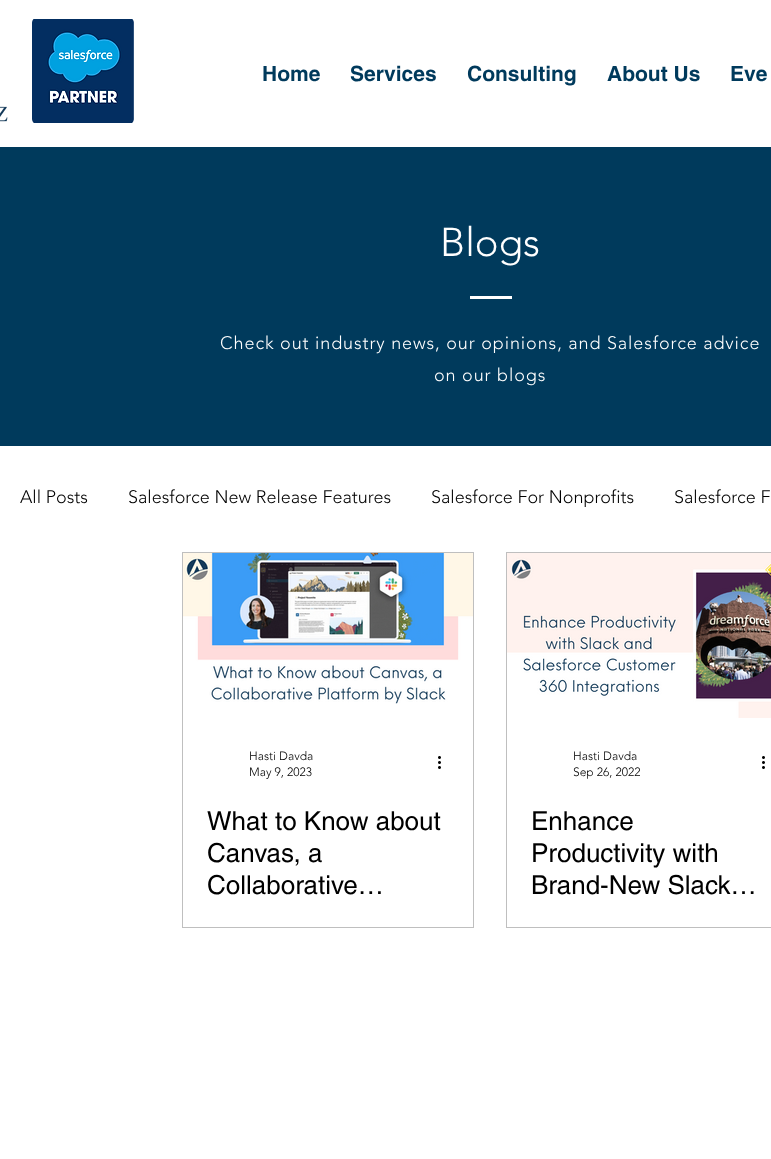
<!DOCTYPE html>
<meta charset="utf-8">
<style>body { margin: 0 } canvas { display: block }</style>
<canvas id="canvas" width="771" height="1159"></canvas>
<script type="module">
  const canvas = document.getElementById("canvas");
  const ctx = canvas.getContext("2d");
  ctx.miterLimit = 4;
  ctx.fontKerning = "normal";
  async function loadImage(src) {
    const img = new Image();
    img.src = src;
    await img.decode();
    return img;
  }

  ctx.fillStyle = "#ffffff";
  ctx.fillRect(0, 0, 771, 1159);
  ctx.drawImage(await loadImage("img1.png"), 32, 19, 102, 104);
  ctx.font = "bold 21px helvetica";
  ctx.fillStyle = "#003a5c";
  ctx.fillText("Home", 262, 81);
  ctx.fillText("Services", 350, 81);
  ctx.fillText("Consulting", 467, 81);
  ctx.fillText("About Us", 607, 81);
  ctx.fillText("Eve", 730, 81);
  ctx.drawImage(await loadImage("img2.png"), 0, 106, 8, 16);
  ctx.fillRect(0, 147, 771, 299);
  ctx.font = "300 40px 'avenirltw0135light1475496'";
  ctx.fillStyle = "#ffffff";
  ctx.fillText("Blogs", 440, 256);
  ctx.fillRect(470, 296, 42, 3);
  ctx.letterSpacing = "0.9px";
  ctx.font = "300 18px 'avenirltw0135light1475496'";
  ctx.fillText("Check out industry news, our opinions, and Salesforce advice", 220, 349);
  ctx.fillText("on our blogs", 434, 381);
  ctx.letterSpacing = "0px";
  ctx.fillStyle = "#000000";
  ctx.fillText("All Posts", 20, 503);
  ctx.fillText("Salesforce New Release Features", 128, 503);
  ctx.fillText("Salesforce For Nonprofits", 431, 503);
  ctx.fillText("Salesforce F", 674, 503);
  ctx.strokeStyle = "#bfbfbf";
  ctx.strokeRect(182.5, 552.5, 291, 375);
  ctx.drawImage(await loadImage("img3.png"), 183, 553, 290, 151);
  ctx.font = "300 12px 'avenirltw0135light1475496'";
  ctx.fillText("Hasti Davda", 249, 760);
  ctx.fillText("May 9, 2023", 249, 776);
  ctx.drawImage(await loadImage("img4.png"), 438, 756, 3, 13);
  ctx.font = "26px helvetica";
  ctx.fillText("What to Know about", 207, 830);
  ctx.fillText("Canvas, a", 207, 862);
  ctx.fillText("Collaborative…", 207, 894);
  ctx.strokeRect(506.5, 552.5, 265, 375);
  ctx.drawImage(await loadImage("img5.png"), 507, 553, 264, 165);
  ctx.font = "300 12px 'avenirltw0135light1475496'";
  ctx.fillText("Hasti Davda", 573, 760);
  ctx.fillText("Sep 26, 2022", 573, 776);
  ctx.drawImage(await loadImage("img4.png"), 762, 756, 3, 13);
  ctx.font = "26px helvetica";
  ctx.fillText("Enhance", 531, 830);
  ctx.fillText("Productivity with", 531, 862);
  ctx.fillText("Brand-New Slack…", 531, 894);
</script>
